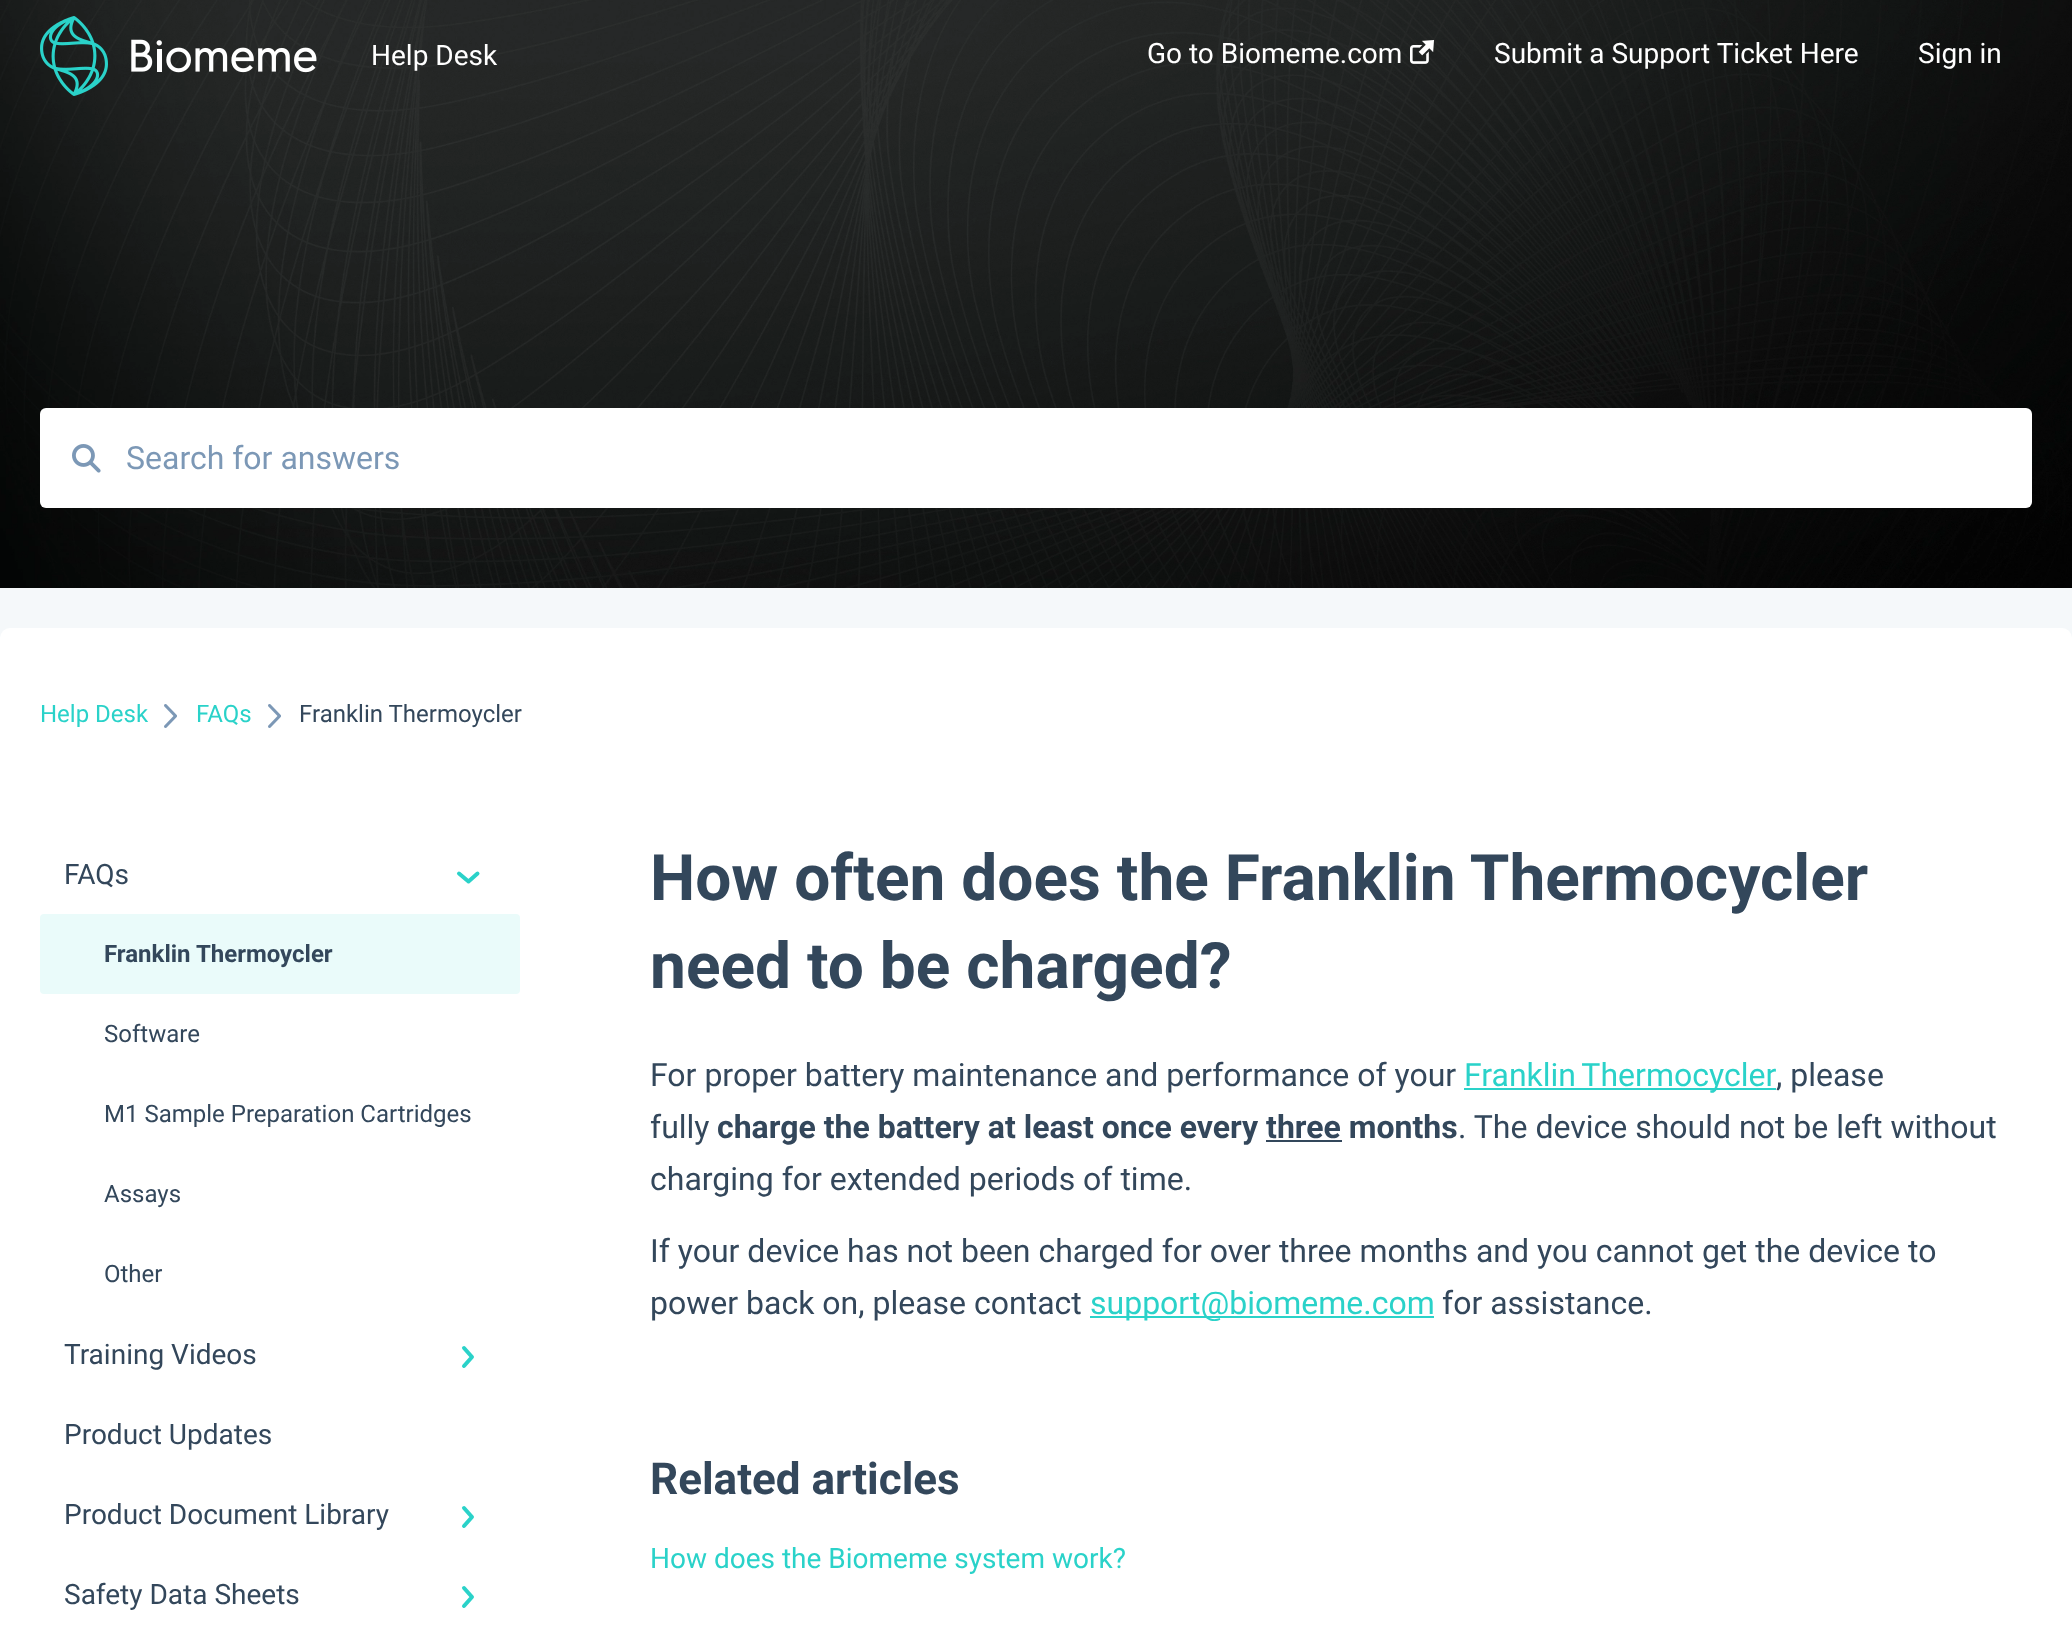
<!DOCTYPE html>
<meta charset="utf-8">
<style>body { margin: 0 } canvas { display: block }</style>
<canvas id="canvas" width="2072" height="1626"></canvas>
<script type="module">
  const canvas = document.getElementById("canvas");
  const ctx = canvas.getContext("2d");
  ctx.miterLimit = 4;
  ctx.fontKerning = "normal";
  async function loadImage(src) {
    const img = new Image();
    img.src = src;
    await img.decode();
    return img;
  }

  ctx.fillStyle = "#f5f8fa";
  ctx.fillRect(0, 0, 2072, 1626);
  ctx.drawImage(await loadImage("img3.png"), 0, 0, 2072, 588);
  ctx.drawImage(await loadImage("img1.png"), 40, 16, 277, 80);
  ctx.font = "28px Roboto";
  ctx.fillStyle = "#ffffff";
  ctx.fillText("Help Desk", 371, 65);
  ctx.fillText("Go to Biomeme.com", 1147, 63);
  ctx.drawImage(await loadImage("img2.png"), 1410, 40, 24, 24);
  ctx.fillText("Submit a Support Ticket Here", 1494, 63);
  ctx.fillText("Sign in", 1918, 63);
  ctx.beginPath();
  ctx.roundRect(40, 408, 1992, 100, 6);
  ctx.fill();
  ctx.drawImage(await loadImage("img4.png"), 72, 444, 29, 29);
  ctx.font = "32px Roboto";
  ctx.fillStyle = "#7c98b6";
  ctx.fillText("Search for answers", 126, 469);
  ctx.fillStyle = "#ffffff";
  ctx.beginPath();
  ctx.roundRect(0, 628, 2072, 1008, 10);
  ctx.fill();
  ctx.font = "24px Roboto";
  ctx.fillStyle = "#2ad2c9";
  ctx.fillText("Help Desk", 40, 722);
  ctx.drawImage(await loadImage("img5.png"), 164, 704, 13, 24);
  ctx.fillText("FAQs", 196, 722);
  ctx.drawImage(await loadImage("img5.png"), 268, 704, 13, 24);
  ctx.fillStyle = "#33475b";
  ctx.fillText("Franklin Thermoycler", 299, 722);
  ctx.font = "28px Roboto";
  ctx.fillText("FAQs", 64, 884);
  ctx.beginPath();
  ctx.moveTo(477.5, 873.5);
  ctx.lineTo(468.5, 881.5);
  ctx.lineTo(459, 873.5);
  ctx.strokeStyle = "#2ad2c9";
  ctx.lineWidth = 4;
  ctx.lineCap = "round";
  ctx.lineJoin = "round";
  ctx.stroke();
  ctx.fillStyle = "#eafbfa";
  ctx.beginPath();
  ctx.roundRect(40, 914, 480, 80, 4);
  ctx.fill();
  ctx.font = "bold 24px Roboto";
  ctx.fillStyle = "#33475b";
  ctx.fillText("Franklin Thermoycler", 104, 962);
  ctx.font = "24px Roboto";
  ctx.fillText("Software", 104, 1042);
  ctx.fillText("M1 Sample Preparation Cartridges", 104, 1122);
  ctx.fillText("Assays", 104, 1202);
  ctx.fillText("Other", 104, 1282);
  ctx.font = "28px Roboto";
  ctx.fillText("Training Videos", 64, 1364);
  ctx.beginPath();
  ctx.moveTo(464, 1348);
  ctx.lineTo(472, 1357);
  ctx.lineTo(464, 1366);
  ctx.stroke();
  ctx.fillText("Product Updates", 64, 1444);
  ctx.fillText("Product Document Library", 64, 1524);
  ctx.beginPath();
  ctx.moveTo(464, 1508);
  ctx.lineTo(472, 1517);
  ctx.lineTo(464, 1526);
  ctx.stroke();
  ctx.fillText("Safety Data Sheets", 64, 1604);
  ctx.beginPath();
  ctx.moveTo(464, 1588);
  ctx.lineTo(472, 1597);
  ctx.lineTo(464, 1606);
  ctx.stroke();
  ctx.font = "bold 64px Roboto";
  ctx.fillText("How often does the Franklin Thermocycler", 650, 900);
  ctx.fillText("need to be charged?", 650, 988);
  ctx.font = "32px Roboto";
  ctx.fillText("For proper battery maintenance and performance of your", 650, 1086);
  ctx.fillStyle = "#2ad2c9";
  ctx.fillRect(1464, 1088, 312, 2);
  ctx.wordSpacing = "-2px";
  ctx.fillText("Franklin Thermocycler", 1464, 1086);
  ctx.wordSpacing = "0px";
  ctx.fillStyle = "#33475b";
  ctx.fillText(", please", 1776, 1086);
  ctx.fillText("fully", 650, 1138);
  ctx.font = "bold 32px Roboto";
  ctx.fillText("charge the battery at least once every three months", 717, 1138);
  ctx.fillRect(1266, 1140, 76, 2);
  ctx.font = "32px Roboto";
  ctx.fillText(". The device should not be left without", 1458, 1138);
  ctx.fillText("charging for extended periods of time.", 650, 1190);
  ctx.fillText("If your device has not been charged for over three months and you cannot get the device to", 650, 1262);
  ctx.fillText("power back on, please contact", 650, 1314);
  ctx.fillStyle = "#2ad2c9";
  ctx.fillRect(1090, 1316, 344, 2);
  ctx.fillText("support@biomeme.com", 1090, 1314);
  ctx.fillStyle = "#33475b";
  ctx.fillText("for assistance.", 1442, 1314);
  ctx.font = "bold 44px Roboto";
  ctx.fillText("Related articles", 650, 1494);
  ctx.font = "28px Roboto";
  ctx.fillStyle = "#2ad2c9";
  ctx.fillText("How does the Biomeme system work?", 650, 1568);
</script>
